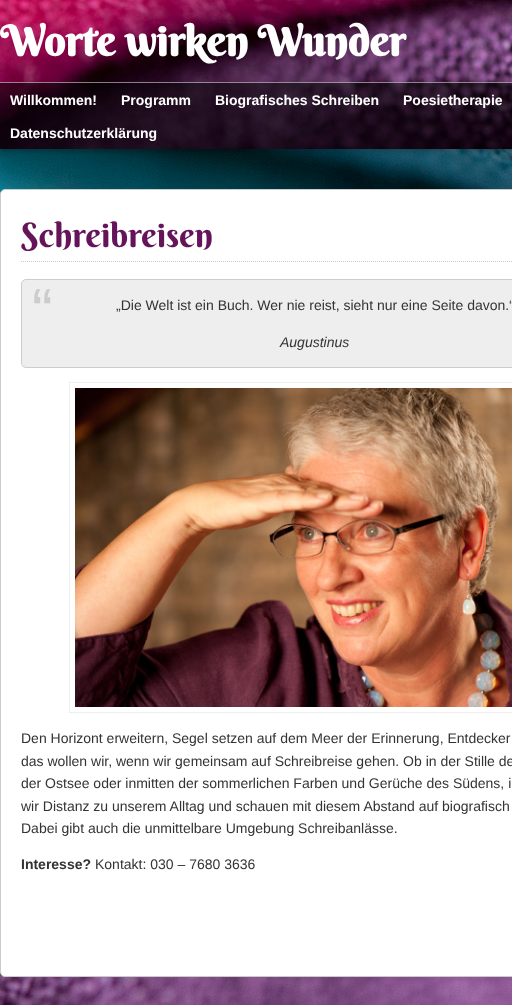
<!DOCTYPE html>
<meta charset="utf-8">
<style>body { margin: 0 } canvas { display: block }</style>
<canvas id="canvas" width="512" height="1005"></canvas>
<script type="module">
  const canvas = document.getElementById("canvas");
  const ctx = canvas.getContext("2d");
  ctx.miterLimit = 4;
  ctx.fontKerning = "normal";
  async function loadImage(src) {
    const img = new Image();
    img.src = src;
    await img.decode();
    return img;
  }

  ctx.fillStyle = "#ffffff";
  ctx.fillRect(0, 0, 512, 1005);
  ctx.drawImage(await loadImage("img1.png"), 0, 149, 512, 856);
  ctx.fillStyle = "rgba(0, 0, 0, 0.2)";
  ctx.filter = "blur(2.5px)";
  ctx.beginPath();
  ctx.rect(0, 3, 512, 149);
  ctx.fill();
  ctx.filter = "none";
  ctx.drawImage(await loadImage("img2.png"), 0, 0, 512, 149);
  ctx.font = "bold 42px Berkshire Swash";
  ctx.fillStyle = "#ffffff";
  ctx.fillText("Worte wirken Wunder", 0, 56);
  ctx.fillStyle = "rgba(0, 0, 0, 0.5)";
  ctx.fillRect(0, 82, 512, 67);
  ctx.fillStyle = "rgba(255, 255, 255, 0.5)";
  ctx.fillRect(0, 82, 512, 1);
  ctx.font = "bold 14px Liberation Sans";
  ctx.fillStyle = "#ffffff";
  ctx.fillText("Willkommen!", 10, 105);
  ctx.fillText("Programm", 121, 105);
  ctx.fillText("Biografisches Schreiben", 215, 105);
  ctx.fillText("Poesietherapie", 403, 105);
  ctx.fillText("Datenschutzerklärung", 10, 138);
  ctx.fillStyle = "rgba(0, 0, 0, 0.05)";
  ctx.filter = "blur(2.5px)";
  ctx.beginPath();
  ctx.roundRect(0, 194, 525, 788, 5);
  ctx.fill();
  ctx.filter = "none";
  ctx.fillStyle = "#ffffff";
  ctx.beginPath();
  ctx.roundRect(0.5, 189.5, 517, 787, 4.5);
  ctx.fill();
  ctx.strokeStyle = "#cccccc";
  ctx.stroke();
  ctx.beginPath();
  ctx.moveTo(21, 261.5);
  ctx.lineTo(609, 261.5);
  ctx.setLineDash([1, 1]);
  ctx.stroke();
  ctx.font = "34px Berkshire Swash";
  ctx.fillStyle = "#651459";
  ctx.fillText("Schreibreisen", 21, 247);
  ctx.fillStyle = "#eeeeee";
  ctx.beginPath();
  ctx.roundRect(21.5, 279.5, 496, 88, 4.5);
  ctx.fill();
  ctx.setLineDash([]);
  ctx.stroke();
  ctx.font = "62px Liberation Sans";
  ctx.fillStyle = "#cccccc";
  ctx.fillText("“", 32, 332);
  ctx.font = "14px Liberation Sans";
  ctx.fillStyle = "#333333";
  ctx.fillText("„Die Welt ist ein Buch. Wer nie reist, sieht nur eine Seite davon.“", 116, 310);
  ctx.font = "italic 14px Liberation Sans";
  ctx.fillText("Augustinus", 280, 347);
  ctx.strokeStyle = "#eeeeee";
  ctx.strokeRect(69.5, 382.5, 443, 330);
  ctx.drawImage(await loadImage("img3.png"), 75, 388, 437, 319);
  ctx.font = "14px Liberation Sans";
  ctx.fillText("Den Horizont erweitern, Segel setzen auf dem Meer der Erinnerung, Entdecker", 21, 743);
  ctx.fillText("das wollen wir, wenn wir gemeinsam auf Schreibreise gehen. Ob in der Stille de", 21, 766);
  ctx.fillText("der Ostsee oder inmitten der sommerlichen Farben und Gerüche des Südens, i", 21, 788);
  ctx.fillText("wir Distanz zu unserem Alltag und schauen mit diesem Abstand auf biografisch", 21, 811);
  ctx.fillText("Dabei gibt auch die unmittelbare Umgebung Schreibanlässe.", 21, 833);
  ctx.font = "bold 14px Liberation Sans";
  ctx.fillText("Interesse?", 21, 869);
  ctx.font = "14px Liberation Sans";
  ctx.fillText("Kontakt: 030 – 7680 3636", 95, 869);
</script>
